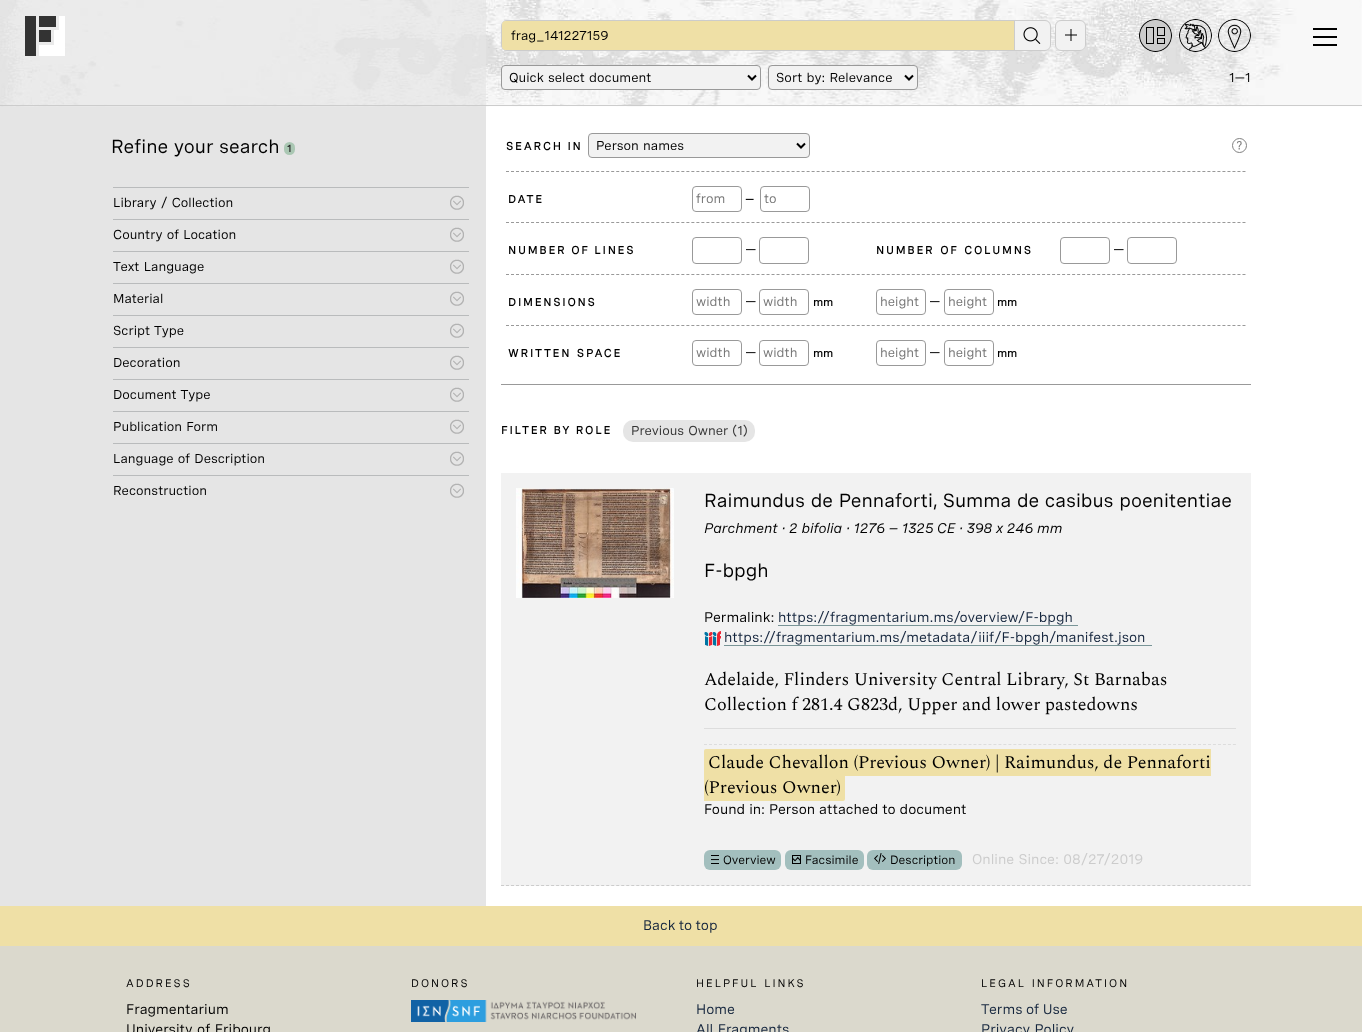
<!DOCTYPE html>
<meta charset="utf-8">
<style>body { margin: 0 } canvas { display: block }</style>
<canvas id="canvas" width="1362" height="1032"></canvas>
<script type="module">
  const canvas = document.getElementById("canvas");
  const ctx = canvas.getContext("2d");
  ctx.miterLimit = 4;
  ctx.fontKerning = "normal";
  async function loadImage(src) {
    const img = new Image();
    img.src = src;
    await img.decode();
    return img;
  }

  ctx.fillStyle = "#ffffff";
  ctx.fillRect(0, 0, 1362, 1032);
  ctx.fillStyle = "#e5e5e5";
  ctx.fillRect(0, 106, 486, 800);
  ctx.drawImage(await loadImage("img1.png"), 0, 0, 1362, 107);
  ctx.fillStyle = "#cccccc";
  ctx.fillRect(0, 105, 1362, 1);
  ctx.fillStyle = "rgba(229, 229, 229, 0.7)";
  ctx.fillRect(0, 0, 486, 105);
  ctx.fillStyle = "#333333";
  ctx.fillRect(39, 16, 17, 11);
  ctx.fillRect(39, 30, 12, 12);
  ctx.fillRect(25, 16, 11, 40);
  ctx.fillStyle = "#ffffff";
  ctx.beginPath();
  ctx.moveTo(59, 16);
  ctx.lineTo(59, 30);
  ctx.lineTo(54, 30);
  ctx.lineTo(54, 45);
  ctx.lineTo(39, 45);
  ctx.lineTo(39, 56);
  ctx.lineTo(65, 56);
  ctx.lineTo(65, 16);
  ctx.closePath();
  ctx.fill();
  ctx.save();
  ctx.beginPath();
  ctx.roundRect(501, 20, 550, 31, 6);
  ctx.clip();
  ctx.fillStyle = "#f2f2f2";
  ctx.fillRect(1015, 20, 35, 31);
  ctx.restore();
  ctx.beginPath();
  ctx.roundRect(501.5, 20.5, 549, 30, 5.5);
  ctx.strokeStyle = "#cccccc";
  ctx.stroke();
  ctx.fillStyle = "#efe0a6";
  ctx.beginPath();
  ctx.roundRect(502, 21, 513, 29, [4, 0, 0, 4]);
  ctx.fill();
  ctx.fillStyle = "#cccccc";
  ctx.fillRect(1014, 21, 1, 29);
  ctx.font = "13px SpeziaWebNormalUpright";
  ctx.fillStyle = "#000000";
  ctx.fillText("frag_141227159", 511, 40);
  ctx.drawImage(await loadImage("img2.png"), 1023, 27, 18, 17);
  ctx.fillStyle = "#f2f2f2";
  ctx.beginPath();
  ctx.roundRect(1055, 20, 31, 31, 6);
  ctx.fill();
  ctx.beginPath();
  ctx.moveTo(1065, 35);
  ctx.lineTo(1077, 35);
  ctx.moveTo(1071, 29);
  ctx.lineTo(1071, 41);
  ctx.strokeStyle = "#000000";
  ctx.stroke();
  ctx.beginPath();
  ctx.roundRect(1055.5, 20.5, 30, 30, 5.5);
  ctx.strokeStyle = "#cccccc";
  ctx.stroke();
  ctx.fillStyle = "#cccccc";
  ctx.beginPath();
  ctx.arc(1155.5, 35.5, 16.5, 0, Math.PI * 2);
  ctx.fill();
  ctx.drawImage(await loadImage("img3.png"), 1139, 19, 33, 33);
  ctx.drawImage(await loadImage("img4.png"), 1179, 19, 33, 33);
  ctx.drawImage(await loadImage("img5.png"), 1218, 19, 33, 33);
  ctx.fillStyle = "#f2f2f2";
  ctx.beginPath();
  ctx.roundRect(501.5, 65.5, 259, 24, 3.5);
  ctx.fill();
  ctx.strokeStyle = "#999999";
  ctx.stroke();
  ctx.beginPath();
  ctx.moveTo(748, 75.5);
  ctx.lineTo(752, 79.5);
  ctx.lineTo(756, 75.5);
  ctx.strokeStyle = "#000000";
  ctx.lineWidth = 2;
  ctx.stroke();
  ctx.wordSpacing = "1px";
  ctx.fillStyle = "#000000";
  ctx.fillText("Quick select document", 509, 82);
  ctx.fillStyle = "#f2f2f2";
  ctx.beginPath();
  ctx.roundRect(768.5, 65.5, 149, 24, 3.5);
  ctx.fill();
  ctx.strokeStyle = "#999999";
  ctx.lineWidth = 1;
  ctx.stroke();
  ctx.beginPath();
  ctx.moveTo(905, 75.5);
  ctx.lineTo(909, 79.5);
  ctx.lineTo(913, 75.5);
  ctx.strokeStyle = "#000000";
  ctx.lineWidth = 2;
  ctx.stroke();
  ctx.fillStyle = "#000000";
  ctx.fillText("Sort by: Relevance", 776, 82);
  ctx.wordSpacing = "0px";
  ctx.fillText("1—1", 1229, 82);
  ctx.fillRect(1313, 28, 24, 2);
  ctx.fillRect(1313, 36, 24, 2);
  ctx.fillRect(1313, 44, 24, 2);
  ctx.wordSpacing = "1px";
  ctx.font = "19px SpeziaWebNormalUpright";
  ctx.fillText("Refine your search", 111, 153);
  ctx.fillStyle = "#aac7b3";
  ctx.beginPath();
  ctx.roundRect(284, 142, 11, 13, 5.5);
  ctx.fill();
  ctx.wordSpacing = "0px";
  ctx.font = "bold 10px SpeziaWebNormalUpright";
  ctx.fillStyle = "#222222";
  ctx.fillText("1", 287, 152);
  ctx.drawImage(await loadImage("img6.png"), 450, 195, 14, 15);
  ctx.fillStyle = "#b9bbbc";
  ctx.fillRect(113, 187, 356, 1);
  ctx.wordSpacing = "1px";
  ctx.font = "13px SpeziaWebNormalUpright";
  ctx.fillStyle = "#000000";
  ctx.fillText("Library / Collection", 113, 207);
  ctx.drawImage(await loadImage("img6.png"), 450, 227, 14, 15);
  ctx.fillStyle = "#b9bbbc";
  ctx.fillRect(113, 219, 356, 1);
  ctx.fillStyle = "#000000";
  ctx.fillText("Country of Location", 113, 239);
  ctx.drawImage(await loadImage("img6.png"), 450, 259, 14, 15);
  ctx.fillStyle = "#b9bbbc";
  ctx.fillRect(113, 251, 356, 1);
  ctx.fillStyle = "#000000";
  ctx.fillText("Text Language", 113, 271);
  ctx.drawImage(await loadImage("img6.png"), 450, 291, 14, 15);
  ctx.fillStyle = "#b9bbbc";
  ctx.fillRect(113, 283, 356, 1);
  ctx.wordSpacing = "0px";
  ctx.fillStyle = "#000000";
  ctx.fillText("Material", 113, 303);
  ctx.drawImage(await loadImage("img6.png"), 450, 323, 14, 15);
  ctx.fillStyle = "#b9bbbc";
  ctx.fillRect(113, 315, 356, 1);
  ctx.wordSpacing = "1px";
  ctx.fillStyle = "#000000";
  ctx.fillText("Script Type", 113, 335);
  ctx.drawImage(await loadImage("img6.png"), 450, 355, 14, 15);
  ctx.fillStyle = "#b9bbbc";
  ctx.fillRect(113, 347, 356, 1);
  ctx.wordSpacing = "0px";
  ctx.fillStyle = "#000000";
  ctx.fillText("Decoration", 113, 367);
  ctx.drawImage(await loadImage("img6.png"), 450, 387, 14, 15);
  ctx.fillStyle = "#b9bbbc";
  ctx.fillRect(113, 379, 356, 1);
  ctx.wordSpacing = "1px";
  ctx.fillStyle = "#000000";
  ctx.fillText("Document Type", 113, 399);
  ctx.drawImage(await loadImage("img6.png"), 450, 419, 14, 15);
  ctx.fillStyle = "#b9bbbc";
  ctx.fillRect(113, 411, 356, 1);
  ctx.fillStyle = "#000000";
  ctx.fillText("Publication Form", 113, 431);
  ctx.drawImage(await loadImage("img6.png"), 450, 451, 14, 15);
  ctx.fillStyle = "#b9bbbc";
  ctx.fillRect(113, 443, 356, 1);
  ctx.fillStyle = "#000000";
  ctx.fillText("Language of Description", 113, 463);
  ctx.drawImage(await loadImage("img6.png"), 450, 483, 14, 15);
  ctx.fillStyle = "#b9bbbc";
  ctx.fillRect(113, 475, 356, 1);
  ctx.wordSpacing = "0px";
  ctx.fillStyle = "#000000";
  ctx.fillText("Reconstruction", 113, 495);
  ctx.fillStyle = "#999999";
  ctx.fillRect(501, 384, 750, 1);
  ctx.letterSpacing = "2px";
  ctx.font = "bold 11px SpeziaWebNormalUpright";
  ctx.fillStyle = "#000000";
  ctx.fillText("SEARCH IN", 506, 150);
  ctx.fillStyle = "#f2f2f2";
  ctx.beginPath();
  ctx.roundRect(588.5, 133.5, 221, 24, 3.5);
  ctx.fill();
  ctx.strokeStyle = "#999999";
  ctx.lineWidth = 1;
  ctx.stroke();
  ctx.beginPath();
  ctx.moveTo(797, 143.5);
  ctx.lineTo(801, 147.5);
  ctx.lineTo(805, 143.5);
  ctx.strokeStyle = "#000000";
  ctx.lineWidth = 2;
  ctx.stroke();
  ctx.letterSpacing = "0px";
  ctx.wordSpacing = "1px";
  ctx.font = "13px SpeziaWebNormalUpright";
  ctx.fillStyle = "#000000";
  ctx.fillText("Person names", 596, 150);
  ctx.drawImage(await loadImage("img7.png"), 1232, 138, 15, 15);
  ctx.beginPath();
  ctx.moveTo(506, 171.5);
  ctx.lineTo(1246, 171.5);
  ctx.strokeStyle = "#999999";
  ctx.lineWidth = 1;
  ctx.setLineDash([3, 2.01]);
  ctx.stroke();
  ctx.letterSpacing = "2px";
  ctx.wordSpacing = "0px";
  ctx.font = "bold 11px SpeziaWebNormalUpright";
  ctx.fillText("DATE", 508, 203);
  ctx.beginPath();
  ctx.roundRect(692.5, 186.5, 49, 25, 3.5);
  ctx.setLineDash([]);
  ctx.stroke();
  ctx.letterSpacing = "0px";
  ctx.font = "13px SpeziaWebNormalUpright";
  ctx.fillStyle = "#757575";
  ctx.fillText("from", 696, 203);
  ctx.letterSpacing = "2px";
  ctx.font = "bold 11px SpeziaWebNormalUpright";
  ctx.fillStyle = "#000000";
  ctx.fillText("—", 745, 203);
  ctx.beginPath();
  ctx.roundRect(760.5, 186.5, 49, 25, 3.5);
  ctx.stroke();
  ctx.letterSpacing = "0px";
  ctx.font = "13px SpeziaWebNormalUpright";
  ctx.fillStyle = "#757575";
  ctx.fillText("to", 764, 203);
  ctx.beginPath();
  ctx.moveTo(506, 222.5);
  ctx.lineTo(1246, 222.5);
  ctx.setLineDash([3, 2.01]);
  ctx.stroke();
  ctx.letterSpacing = "2px";
  ctx.font = "bold 11px SpeziaWebNormalUpright";
  ctx.fillStyle = "#000000";
  ctx.fillText("NUMBER OF LINES", 508, 254);
  ctx.beginPath();
  ctx.roundRect(692.5, 237.5, 49, 26, 3.5);
  ctx.setLineDash([]);
  ctx.stroke();
  ctx.letterSpacing = "0px";
  ctx.font = "14px SpeziaWebNormalUpright";
  ctx.fillText("—", 745, 254);
  ctx.beginPath();
  ctx.roundRect(759.5, 237.5, 49, 26, 3.5);
  ctx.stroke();
  ctx.letterSpacing = "2px";
  ctx.wordSpacing = "1px";
  ctx.font = "bold 11px SpeziaWebNormalUpright";
  ctx.fillText("NUMBER OF COLUMNS", 876, 254);
  ctx.beginPath();
  ctx.roundRect(1060.5, 237.5, 49, 26, 3.5);
  ctx.stroke();
  ctx.letterSpacing = "0px";
  ctx.wordSpacing = "0px";
  ctx.font = "14px SpeziaWebNormalUpright";
  ctx.fillText("—", 1113, 254);
  ctx.beginPath();
  ctx.roundRect(1127.5, 237.5, 49, 26, 3.5);
  ctx.stroke();
  ctx.beginPath();
  ctx.moveTo(506, 274.5);
  ctx.lineTo(1246, 274.5);
  ctx.setLineDash([3, 2.01]);
  ctx.stroke();
  ctx.letterSpacing = "2px";
  ctx.font = "bold 11px SpeziaWebNormalUpright";
  ctx.fillText("DIMENSIONS", 508, 306);
  ctx.beginPath();
  ctx.roundRect(692.5, 289.5, 49, 25, 3.5);
  ctx.setLineDash([]);
  ctx.stroke();
  ctx.letterSpacing = "0px";
  ctx.font = "13px SpeziaWebNormalUpright";
  ctx.fillStyle = "#757575";
  ctx.fillText("width", 696, 306);
  ctx.font = "14px SpeziaWebNormalUpright";
  ctx.fillStyle = "#000000";
  ctx.fillText("—", 745, 306);
  ctx.beginPath();
  ctx.roundRect(759.5, 289.5, 49, 25, 3.5);
  ctx.stroke();
  ctx.font = "13px SpeziaWebNormalUpright";
  ctx.fillStyle = "#757575";
  ctx.fillText("width", 763, 306);
  ctx.font = "bold 11px SpeziaWebNormalUpright";
  ctx.fillStyle = "#000000";
  ctx.fillText("mm", 813, 306);
  ctx.beginPath();
  ctx.roundRect(876.5, 289.5, 49, 25, 3.5);
  ctx.stroke();
  ctx.font = "13px SpeziaWebNormalUpright";
  ctx.fillStyle = "#757575";
  ctx.fillText("height", 880, 306);
  ctx.font = "14px SpeziaWebNormalUpright";
  ctx.fillStyle = "#000000";
  ctx.fillText("—", 929, 306);
  ctx.beginPath();
  ctx.roundRect(944.5, 289.5, 49, 25, 3.5);
  ctx.stroke();
  ctx.font = "13px SpeziaWebNormalUpright";
  ctx.fillStyle = "#757575";
  ctx.fillText("height", 948, 306);
  ctx.font = "bold 11px SpeziaWebNormalUpright";
  ctx.fillStyle = "#000000";
  ctx.fillText("mm", 997, 306);
  ctx.beginPath();
  ctx.moveTo(506, 325.5);
  ctx.lineTo(1246, 325.5);
  ctx.setLineDash([3, 2.01]);
  ctx.stroke();
  ctx.letterSpacing = "2px";
  ctx.wordSpacing = "1px";
  ctx.fillText("WRITTEN SPACE", 508, 357);
  ctx.beginPath();
  ctx.roundRect(692.5, 340.5, 49, 25, 3.5);
  ctx.setLineDash([]);
  ctx.stroke();
  ctx.letterSpacing = "0px";
  ctx.wordSpacing = "0px";
  ctx.font = "13px SpeziaWebNormalUpright";
  ctx.fillStyle = "#757575";
  ctx.fillText("width", 696, 357);
  ctx.font = "14px SpeziaWebNormalUpright";
  ctx.fillStyle = "#000000";
  ctx.fillText("—", 745, 357);
  ctx.beginPath();
  ctx.roundRect(759.5, 340.5, 49, 25, 3.5);
  ctx.stroke();
  ctx.font = "13px SpeziaWebNormalUpright";
  ctx.fillStyle = "#757575";
  ctx.fillText("width", 763, 357);
  ctx.font = "bold 11px SpeziaWebNormalUpright";
  ctx.fillStyle = "#000000";
  ctx.fillText("mm", 813, 357);
  ctx.beginPath();
  ctx.roundRect(876.5, 340.5, 49, 25, 3.5);
  ctx.stroke();
  ctx.font = "13px SpeziaWebNormalUpright";
  ctx.fillStyle = "#757575";
  ctx.fillText("height", 880, 357);
  ctx.font = "14px SpeziaWebNormalUpright";
  ctx.fillStyle = "#000000";
  ctx.fillText("—", 929, 357);
  ctx.beginPath();
  ctx.roundRect(944.5, 340.5, 49, 25, 3.5);
  ctx.stroke();
  ctx.font = "13px SpeziaWebNormalUpright";
  ctx.fillStyle = "#757575";
  ctx.fillText("height", 948, 357);
  ctx.font = "bold 11px SpeziaWebNormalUpright";
  ctx.fillStyle = "#000000";
  ctx.fillText("mm", 997, 357);
  ctx.letterSpacing = "2px";
  ctx.fillText("FILTER BY ROLE", 501, 434);
  ctx.fillStyle = "#e5e5e5";
  ctx.beginPath();
  ctx.roundRect(623, 420, 132, 22, 10);
  ctx.fill();
  ctx.letterSpacing = "0px";
  ctx.wordSpacing = "1px";
  ctx.font = "13px SpeziaWebNormalUpright";
  ctx.fillStyle = "#333333";
  ctx.fillText("Previous Owner (1)", 631, 435);
  ctx.fillStyle = "#f2f2f2";
  ctx.fillRect(501, 473, 750, 413);
  ctx.beginPath();
  ctx.moveTo(501, 885.5);
  ctx.lineTo(1251, 885.5);
  ctx.strokeStyle = "#cccccc";
  ctx.setLineDash([3, 2.01]);
  ctx.stroke();
  ctx.drawImage(await loadImage("img8.png"), 516, 488, 158, 110);
  ctx.font = "19px SpeziaWebNormalUpright";
  ctx.fillStyle = "#000000";
  ctx.fillText("Raimundus de Pennaforti, Summa de casibus poenitentiae", 704, 507);
  ctx.wordSpacing = "0.25px";
  ctx.font = "italic 14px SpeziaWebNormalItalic";
  ctx.fillText("Parchment · 2 bifolia · 1276 – 1325 CE · 398 x 246 mm", 704, 533);
  ctx.wordSpacing = "0px";
  ctx.font = "19px SpeziaWebNormalUpright";
  ctx.fillText("F-bpgh", 704, 577);
  ctx.font = "14px SpeziaWebNormalUpright";
  ctx.fillText("Permalink:", 704, 622);
  ctx.fillStyle = "#14253d";
  ctx.fillText("https://fragmentarium.ms/overview/F-bpgh", 778, 622);
  ctx.fillStyle = "#799597";
  ctx.fillRect(778, 625, 300, 1);
  ctx.drawImage(await loadImage("img9.png"), 704, 631, 17, 15);
  ctx.fillStyle = "#14253d";
  ctx.fillText("https://fragmentarium.ms/metadata/iiif/F-bpgh/manifest.json", 724, 642);
  ctx.fillStyle = "#799597";
  ctx.fillRect(724, 645, 428, 1);
  ctx.font = "18px Spectral";
  ctx.fillStyle = "#000000";
  ctx.fillText("Adelaide, Flinders University Central Library, St Barnabas", 704, 685);
  ctx.fillText("Collection f 281.4 G823d, Upper and lower pastedowns", 704, 710);
  ctx.fillStyle = "#dddddd";
  ctx.fillRect(704, 728, 532, 1);
  ctx.beginPath();
  ctx.moveTo(704, 744.5);
  ctx.lineTo(1236, 744.5);
  ctx.strokeStyle = "#dddddd";
  ctx.setLineDash([3, 1.99]);
  ctx.stroke();
  ctx.fillStyle = "#efe0a6";
  ctx.beginPath();
  ctx.roundRect(704, 749, 507, 27, [2, 0, 0, 2]);
  ctx.fill();
  ctx.fillStyle = "#000000";
  ctx.fillText("Claude Chevallon (Previous Owner) | Raimundus, de Pennaforti", 708, 768);
  ctx.fillStyle = "#efe0a6";
  ctx.beginPath();
  ctx.roundRect(704, 774, 141, 27, [0, 2, 2, 0]);
  ctx.fill();
  ctx.fillStyle = "#000000";
  ctx.fillText("(Previous Owner)", 704, 793);
  ctx.wordSpacing = "0.5px";
  ctx.font = "14px SpeziaWebNormalUpright";
  ctx.fillText("Found in: Person attached to document", 704, 814);
  ctx.fillStyle = "#a3bfbe";
  ctx.beginPath();
  ctx.roundRect(704, 850, 77, 20, 6);
  ctx.fill();
  ctx.drawImage(await loadImage("img10.png"), 711, 855, 8, 9);
  ctx.wordSpacing = "0px";
  ctx.font = "12px SpeziaWebNormalUpright";
  ctx.fillStyle = "#000000";
  ctx.fillText("Overview", 723, 864);
  ctx.fillStyle = "#a3bfbe";
  ctx.beginPath();
  ctx.roundRect(785, 850, 79, 20, 6);
  ctx.fill();
  ctx.drawImage(await loadImage("img11.png"), 792, 855, 9, 9);
  ctx.fillStyle = "#000000";
  ctx.fillText("Facsimile", 805, 864);
  ctx.fillStyle = "#a3bfbe";
  ctx.beginPath();
  ctx.roundRect(867, 850, 95, 20, 6);
  ctx.fill();
  ctx.drawImage(await loadImage("img12.png"), 874, 853, 12, 11);
  ctx.fillStyle = "#000000";
  ctx.fillText("Description", 890, 864);
  ctx.wordSpacing = "1px";
  ctx.font = "14px SpeziaWebNormalUpright";
  ctx.fillStyle = "#cccccc";
  ctx.fillText("Online Since: 08/27/2019", 972, 864);
  ctx.fillStyle = "#efe0a6";
  ctx.fillRect(0, 906, 1362, 40);
  ctx.wordSpacing = "0px";
  ctx.fillStyle = "#14253d";
  ctx.fillText("Back to top", 643, 930);
  ctx.fillStyle = "#dbd9cd";
  ctx.fillRect(0, 946, 1362, 86);
  ctx.letterSpacing = "2px";
  ctx.font = "11px SpeziaWebNormalUpright";
  ctx.fillStyle = "#000000";
  ctx.fillText("ADDRESS", 126, 987);
  ctx.letterSpacing = "0px";
  ctx.font = "14px SpeziaWebNormalUpright";
  ctx.fillText("Fragmentarium", 126, 1014);
  ctx.wordSpacing = "1px";
  ctx.fillText("University of Fribourg", 126, 1034);
  ctx.letterSpacing = "2px";
  ctx.wordSpacing = "0px";
  ctx.font = "11px SpeziaWebNormalUpright";
  ctx.fillText("DONORS", 411, 987);
  ctx.drawImage(await loadImage("img13.png"), 411, 1000, 225, 22);
  ctx.wordSpacing = "1px";
  ctx.fillText("HELPFUL LINKS", 696, 987);
  ctx.letterSpacing = "0px";
  ctx.wordSpacing = "0px";
  ctx.font = "14px SpeziaWebNormalUpright";
  ctx.fillStyle = "#14253d";
  ctx.fillText("Home", 696, 1014);
  ctx.wordSpacing = "1px";
  ctx.fillText("All Fragments", 696, 1034);
  ctx.letterSpacing = "2px";
  ctx.font = "11px SpeziaWebNormalUpright";
  ctx.fillStyle = "#000000";
  ctx.fillText("LEGAL INFORMATION", 981, 987);
  ctx.letterSpacing = "0px";
  ctx.wordSpacing = "0px";
  ctx.font = "14px SpeziaWebNormalUpright";
  ctx.fillStyle = "#14253d";
  ctx.fillText("Terms of Use", 981, 1014);
  ctx.wordSpacing = "1px";
  ctx.fillText("Privacy Policy", 981, 1034);
</script>
